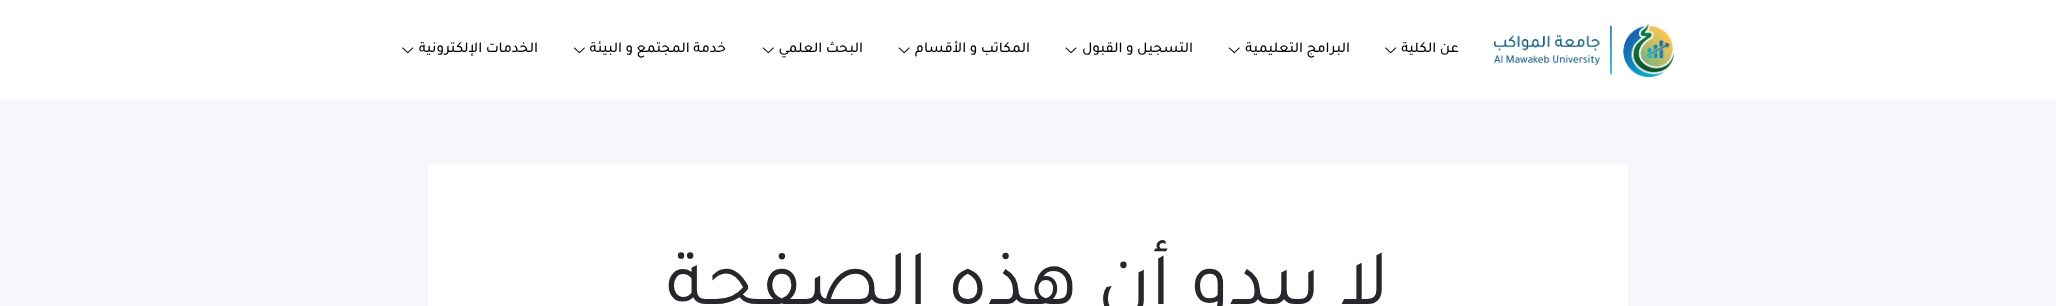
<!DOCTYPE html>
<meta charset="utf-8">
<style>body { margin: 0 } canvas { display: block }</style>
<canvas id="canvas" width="2056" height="306"></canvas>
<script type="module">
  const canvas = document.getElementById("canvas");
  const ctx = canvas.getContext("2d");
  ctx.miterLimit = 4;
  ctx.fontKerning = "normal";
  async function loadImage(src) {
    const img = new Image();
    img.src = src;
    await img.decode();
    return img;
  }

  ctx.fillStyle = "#f6f7fd";
  ctx.fillRect(0, 0, 2056, 306);
  ctx.fillStyle = "#ffffff";
  ctx.fillRect(0, 0, 2056, 100);
  ctx.drawImage(await loadImage("img1.png"), 1494, 23, 180, 54);
  ctx.direction = "rtl";
  ctx.font = "500 15px Tajawal";
  ctx.fillStyle = "#000000";
  ctx.fillText("عن الكلية", 1459, 52);
  ctx.drawImage(await loadImage("img2.png"), 1385, 47, 12, 7);
  ctx.fillText("البرامج التعليمية", 1350, 52);
  ctx.drawImage(await loadImage("img3.png"), 1228, 47, 12, 7);
  ctx.fillText("التسجيل و القبول", 1193, 52);
  ctx.drawImage(await loadImage("img4.png"), 1065, 47, 12, 7);
  ctx.fillText("المكاتب و الأقسام", 1030, 52);
  ctx.drawImage(await loadImage("img5.png"), 898, 47, 12, 7);
  ctx.fillText("البحث العلمي", 863, 52);
  ctx.drawImage(await loadImage("img6.png"), 762, 47, 12, 7);
  ctx.fillText("خدمة المجتمع و البيئة", 726, 52);
  ctx.drawImage(await loadImage("img7.png"), 573, 47, 12, 7);
  ctx.fillText("الخدمات الإلكترونية", 538, 52);
  ctx.drawImage(await loadImage("img8.png"), 402, 47, 12, 7);
  ctx.fillStyle = "#ffffff";
  ctx.fillRect(428, 164, 1200, 142);
  ctx.font = "80px Tajawal";
  ctx.fillStyle = "#26262c";
  ctx.fillText("لا يبدو أن هذه الصفحة", 1389, 304);
</script>
